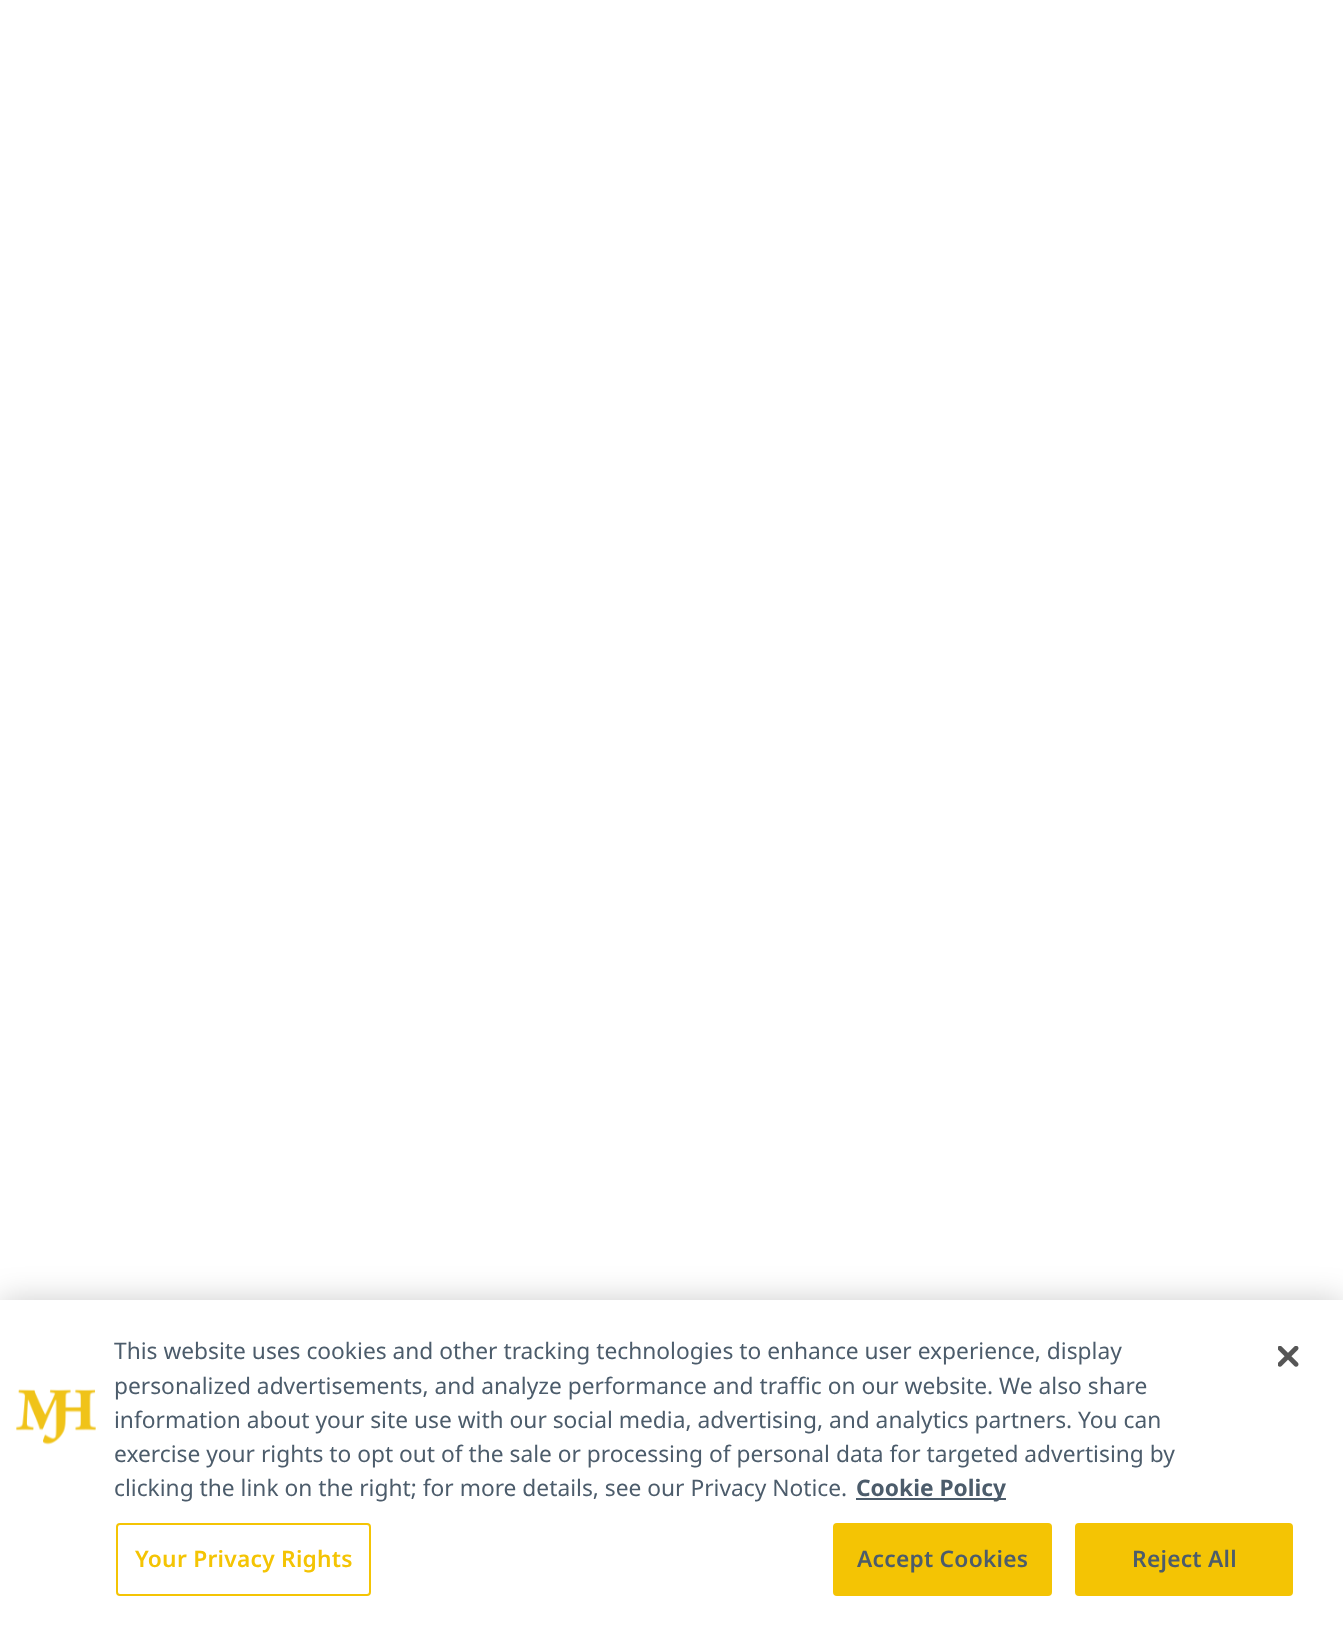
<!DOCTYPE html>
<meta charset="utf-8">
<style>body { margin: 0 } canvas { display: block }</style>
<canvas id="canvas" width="1343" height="1632"></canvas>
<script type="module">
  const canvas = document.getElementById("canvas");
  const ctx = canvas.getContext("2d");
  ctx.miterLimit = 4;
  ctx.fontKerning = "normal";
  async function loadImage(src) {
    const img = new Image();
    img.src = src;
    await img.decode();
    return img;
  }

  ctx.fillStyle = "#ffffff";
  ctx.fillRect(0, 0, 1343, 1632);
  ctx.fillStyle = "rgba(0, 0, 0, 0.2)";
  ctx.filter = "blur(16px)";
  ctx.beginPath();
  ctx.rect(0, 1300, 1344, 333);
  ctx.fill();
  ctx.filter = "none";
  ctx.fillStyle = "#ffffff";
  ctx.fillRect(0, 1300, 1343, 332);
  ctx.drawImage(await loadImage("img1.png"), 16, 1389, 80, 56);
  ctx.font = "22.75px Noto Sans";
  ctx.fillStyle = "#4c5c6b";
  ctx.fillText("This website uses cookies and other tracking technologies to enhance user experience, display", 114, 1359);
  ctx.fillText("personalized advertisements, and analyze performance and traffic on our website. We also share", 114, 1394);
  ctx.fillText("information about your site use with our social media, advertising, and analytics partners. You can", 114, 1428);
  ctx.fillText("exercise your rights to opt out of the sale or processing of personal data for targeted advertising by", 114, 1462);
  ctx.fillText("clicking the link on the right; for more details, see our Privacy Notice.", 114, 1496);
  ctx.fillRect(856, 1498, 150, 2);
  ctx.font = "bold 22.75px Noto Sans";
  ctx.fillText("Cookie Policy", 856, 1496);
  ctx.beginPath();
  ctx.roundRect(117, 1524, 253, 71, 3);
  ctx.strokeStyle = "#f4c404";
  ctx.lineWidth = 2;
  ctx.stroke();
  ctx.letterSpacing = "0.25px";
  ctx.font = "600 22.75px Noto Sans";
  ctx.fillStyle = "#f4c404";
  ctx.fillText("Your Privacy Rights", 135, 1567);
  ctx.beginPath();
  ctx.roundRect(834, 1524, 217, 71, 3);
  ctx.fill();
  ctx.stroke();
  ctx.fillStyle = "#4c5c6b";
  ctx.fillText("Accept Cookies", 857, 1567);
  ctx.fillStyle = "#f4c404";
  ctx.beginPath();
  ctx.roundRect(1076, 1524, 216, 71, 3);
  ctx.fill();
  ctx.stroke();
  ctx.fillStyle = "#4c5c6b";
  ctx.fillText("Reject All", 1132, 1567);
  ctx.drawImage(await loadImage("img2.png"), 1278, 1346, 21, 21);
</script>
